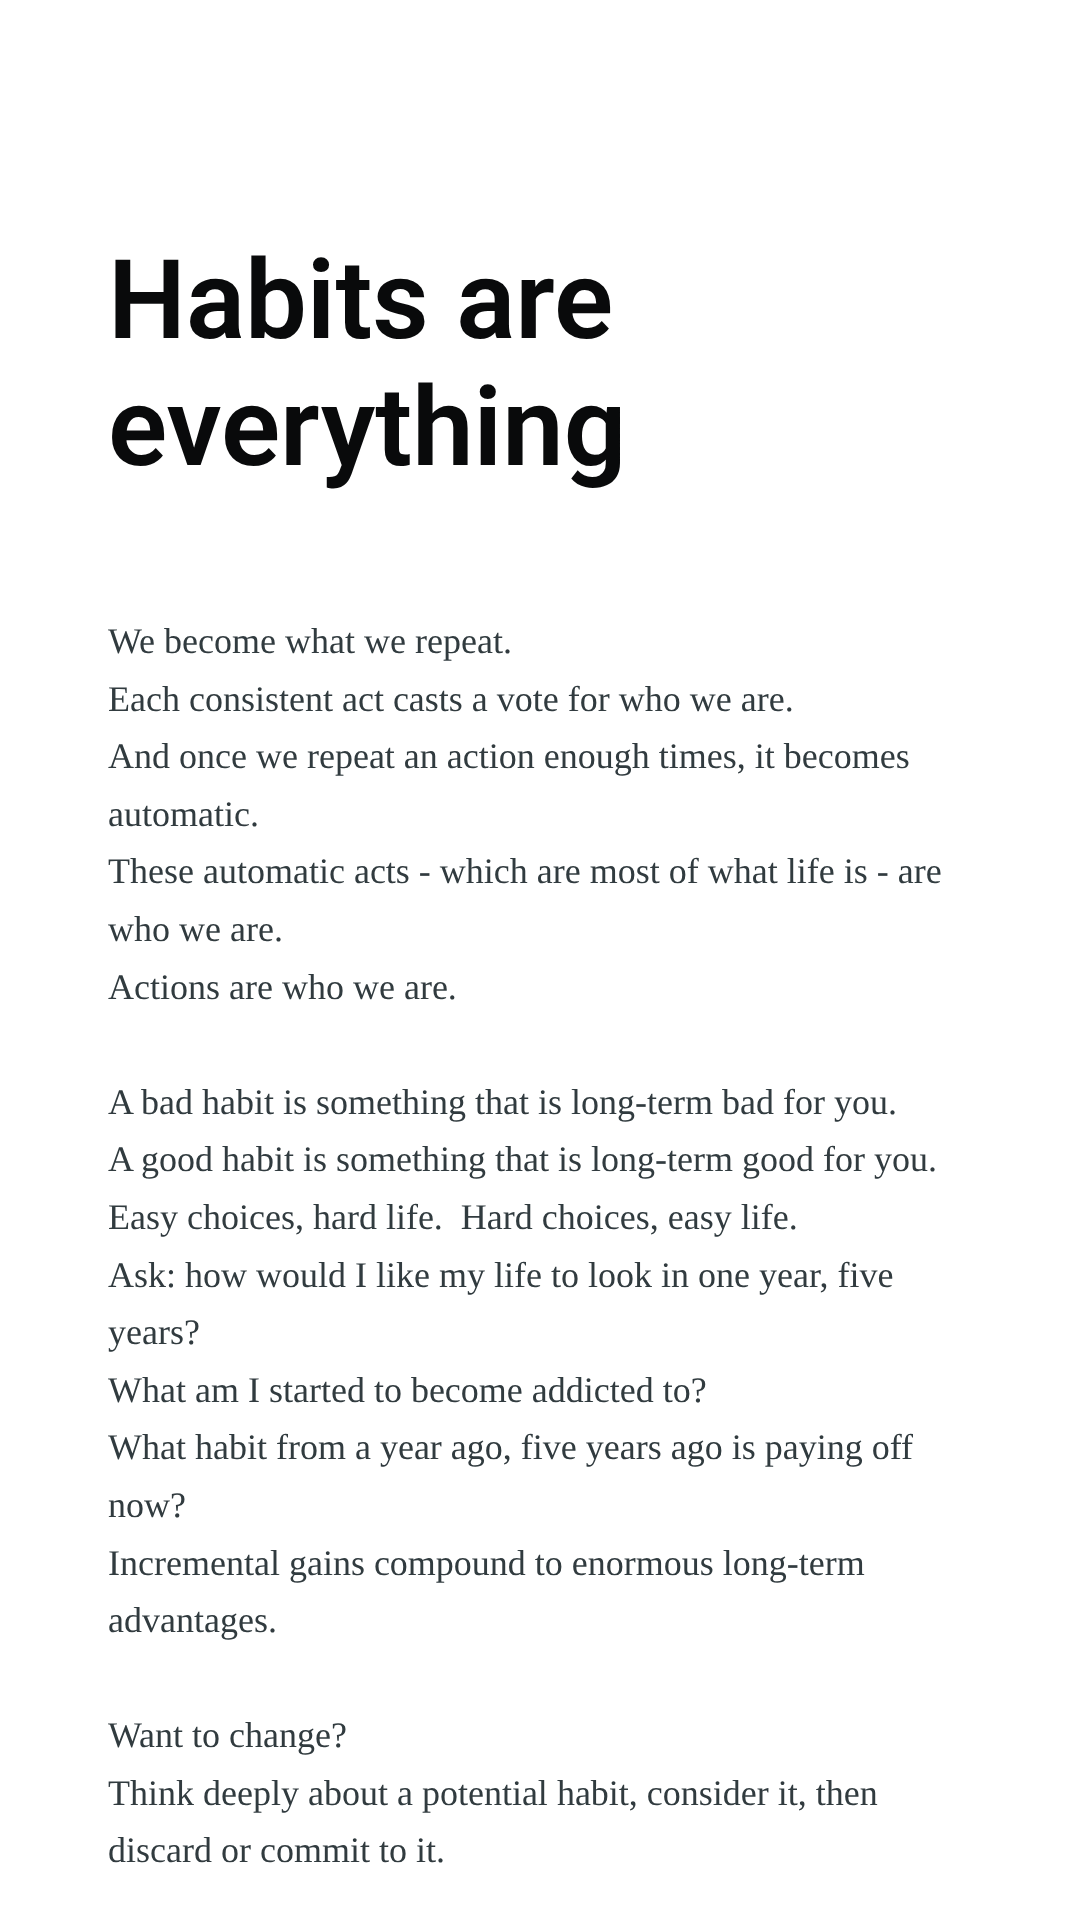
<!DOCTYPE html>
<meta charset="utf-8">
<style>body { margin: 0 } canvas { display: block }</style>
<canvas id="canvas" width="1077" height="1918"></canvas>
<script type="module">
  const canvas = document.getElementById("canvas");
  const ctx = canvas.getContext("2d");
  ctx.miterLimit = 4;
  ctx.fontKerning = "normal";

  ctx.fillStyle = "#ffffff";
  ctx.fillRect(0, 0, 1077, 1918);
  ctx.font = "600 110px Roboto";
  ctx.fillStyle = "#090a0b";
  ctx.fillText("Habits are", 108, 338);
  ctx.fillText("everything", 108, 465);
  ctx.font = "36px Liberation Serif";
  ctx.fillStyle = "#313b3f";
  ctx.fillText("We become what we repeat.", 108, 653);
  ctx.fillText("Each consistent act casts a vote for who we are.", 108, 711);
  ctx.fillText("And once we repeat an action enough times, it becomes", 108, 768);
  ctx.fillText("automatic.", 108, 826);
  ctx.fillText("These automatic acts - which are most of what life is - are", 108, 883);
  ctx.fillText("who we are.", 108, 941);
  ctx.fillText("Actions are who we are.", 108, 999);
  ctx.fillText("A bad habit is something that is long-term bad for you.", 108, 1114);
  ctx.fillText("A good habit is something that is long-term good for you.", 108, 1171);
  ctx.fillText("Easy choices, hard life.  Hard choices, easy life.", 108, 1229);
  ctx.fillText("Ask: how would I like my life to look in one year, five", 108, 1287);
  ctx.fillText("years?", 108, 1344);
  ctx.fillText("What am I started to become addicted to?", 108, 1402);
  ctx.fillText("What habit from a year ago, five years ago is paying off", 108, 1459);
  ctx.fillText("now?", 108, 1517);
  ctx.fillText("Incremental gains compound to enormous long-term", 108, 1575);
  ctx.fillText("advantages.", 108, 1632);
  ctx.fillText("Want to change?", 108, 1747);
  ctx.fillText("Think deeply about a potential habit, consider it, then", 108, 1805);
  ctx.fillText("discard or commit to it.", 108, 1862);
</script>
